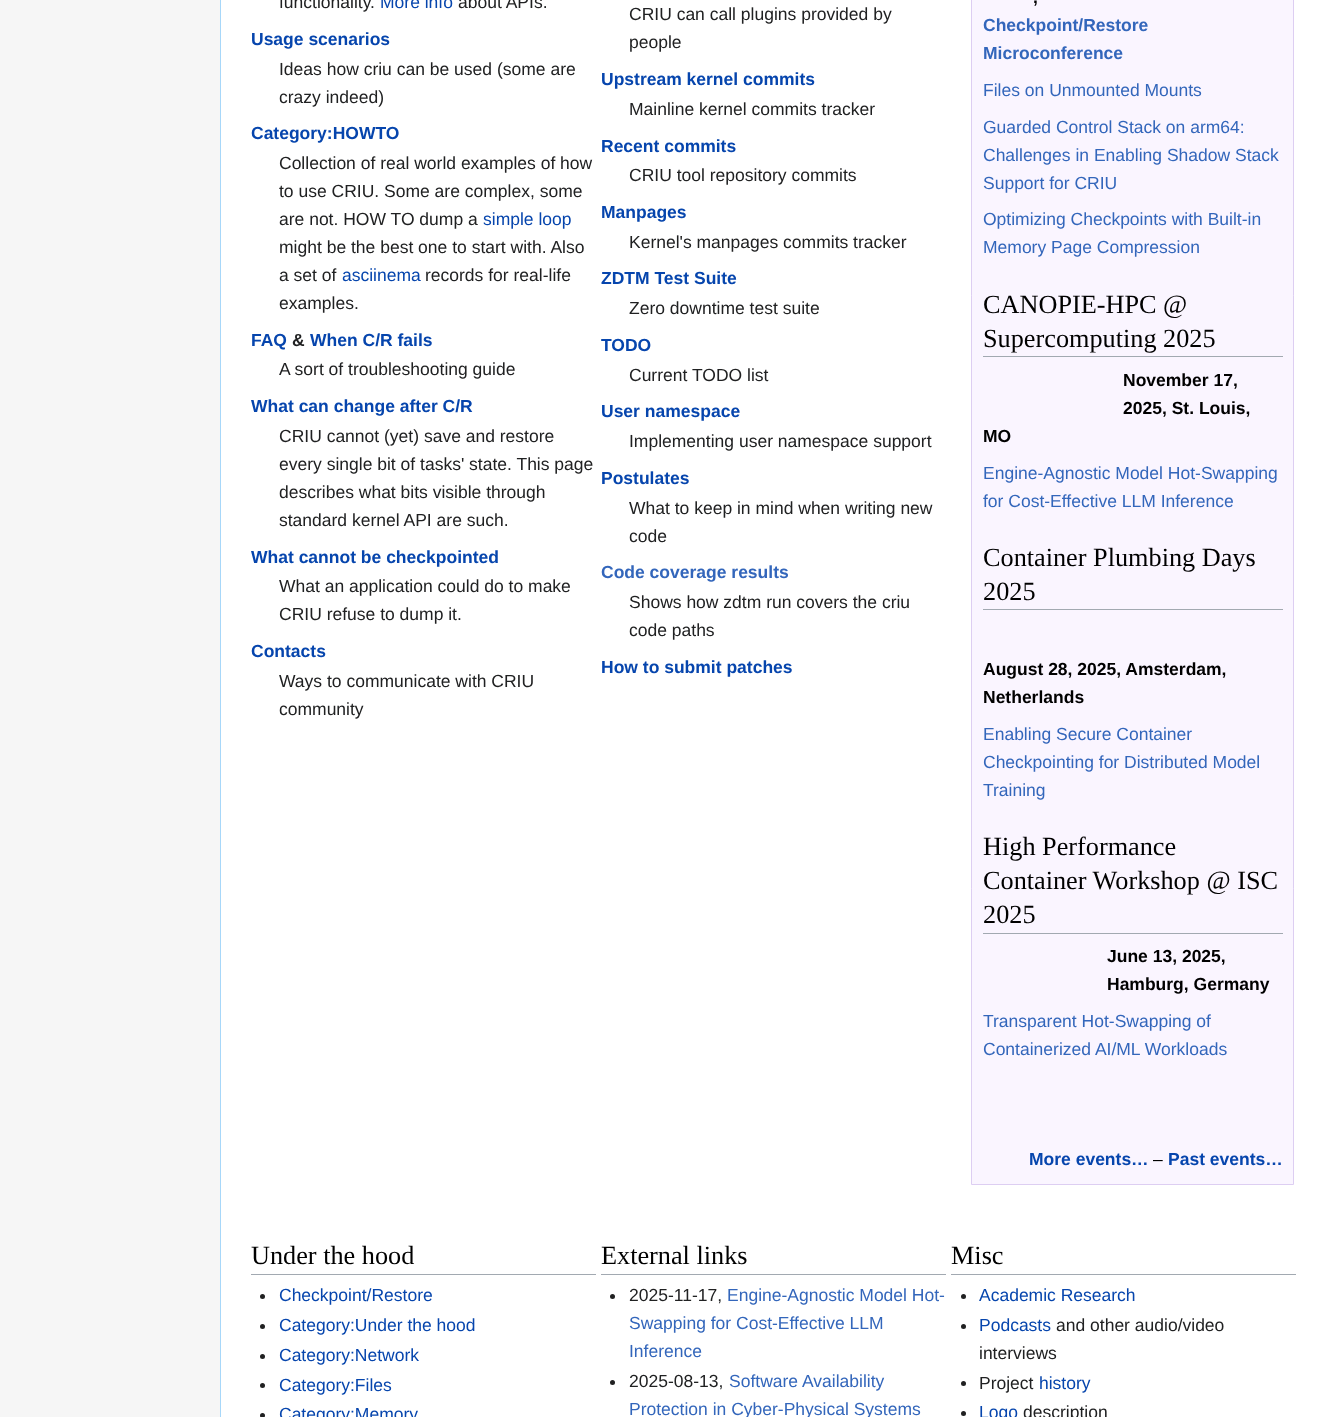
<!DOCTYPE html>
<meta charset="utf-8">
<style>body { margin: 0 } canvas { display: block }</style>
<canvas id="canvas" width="1326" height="1417"></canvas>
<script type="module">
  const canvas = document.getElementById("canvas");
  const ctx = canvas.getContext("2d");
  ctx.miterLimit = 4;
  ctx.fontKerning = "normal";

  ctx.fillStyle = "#f6f6f6";
  ctx.fillRect(0, 0, 1326, 1417);
  ctx.fillStyle = "#ffffff";
  ctx.fillRect(221, 0, 1105, 1417);
  ctx.fillStyle = "#a7d7f9";
  ctx.fillRect(220, 0, 1, 1417);
  ctx.font = "17.5px Liberation Sans";
  ctx.fillStyle = "#202122";
  ctx.fillText("functionality.", 279, 8);
  ctx.fillStyle = "#0645ad";
  ctx.fillText("More info", 380, 8);
  ctx.fillStyle = "#202122";
  ctx.fillText("about APIs.", 458, 8);
  ctx.font = "bold 17.5px Liberation Sans";
  ctx.fillStyle = "#0645ad";
  ctx.fillText("Usage scenarios", 251, 45);
  ctx.font = "17.5px Liberation Sans";
  ctx.fillStyle = "#202122";
  ctx.fillText("Ideas how criu can be used (some are", 279, 75);
  ctx.fillText("crazy indeed)", 279, 103);
  ctx.font = "bold 17.5px Liberation Sans";
  ctx.fillStyle = "#0645ad";
  ctx.fillText("Category:HOWTO", 251, 139);
  ctx.font = "17.5px Liberation Sans";
  ctx.fillStyle = "#202122";
  ctx.fillText("Collection of real world examples of how", 279, 169);
  ctx.fillText("to use CRIU. Some are complex, some", 279, 197);
  ctx.fillText("are not. HOW TO dump a", 279, 225);
  ctx.fillStyle = "#0645ad";
  ctx.fillText("simple loop", 483, 225);
  ctx.fillStyle = "#202122";
  ctx.fillText("might be the best one to start with. Also", 279, 253);
  ctx.fillText("a set of", 279, 281);
  ctx.fillStyle = "#0645ad";
  ctx.fillText("asciinema", 342, 281);
  ctx.fillStyle = "#202122";
  ctx.fillText("records for real-life", 425, 281);
  ctx.fillText("examples.", 279, 309);
  ctx.font = "bold 17.5px Liberation Sans";
  ctx.fillStyle = "#0645ad";
  ctx.fillText("FAQ", 251, 346);
  ctx.fillStyle = "#202122";
  ctx.fillText("&", 292, 346);
  ctx.fillStyle = "#0645ad";
  ctx.fillText("When C/R fails", 310, 346);
  ctx.font = "17.5px Liberation Sans";
  ctx.fillStyle = "#202122";
  ctx.fillText("A sort of troubleshooting guide", 279, 375);
  ctx.font = "bold 17.5px Liberation Sans";
  ctx.fillStyle = "#0645ad";
  ctx.fillText("What can change after C/R", 251, 412);
  ctx.font = "17.5px Liberation Sans";
  ctx.fillStyle = "#202122";
  ctx.fillText("CRIU cannot (yet) save and restore", 279, 442);
  ctx.fillText("every single bit of tasks' state. This page", 279, 470);
  ctx.fillText("describes what bits visible through", 279, 498);
  ctx.fillText("standard kernel API are such.", 279, 526);
  ctx.font = "bold 17.5px Liberation Sans";
  ctx.fillStyle = "#0645ad";
  ctx.fillText("What cannot be checkpointed", 251, 563);
  ctx.font = "17.5px Liberation Sans";
  ctx.fillStyle = "#202122";
  ctx.fillText("What an application could do to make", 279, 592);
  ctx.fillText("CRIU refuse to dump it.", 279, 620);
  ctx.font = "bold 17.5px Liberation Sans";
  ctx.fillStyle = "#0645ad";
  ctx.fillText("Contacts", 251, 657);
  ctx.font = "17.5px Liberation Sans";
  ctx.fillStyle = "#202122";
  ctx.fillText("Ways to communicate with CRIU", 279, 687);
  ctx.fillText("community", 279, 715);
  ctx.fillText("CRIU can call plugins provided by", 629, 20);
  ctx.fillText("people", 629, 48);
  ctx.font = "bold 17.5px Liberation Sans";
  ctx.fillStyle = "#0645ad";
  ctx.fillText("Upstream kernel commits", 601, 85);
  ctx.font = "17.5px Liberation Sans";
  ctx.fillStyle = "#202122";
  ctx.fillText("Mainline kernel commits tracker", 629, 115);
  ctx.font = "bold 17.5px Liberation Sans";
  ctx.fillStyle = "#0645ad";
  ctx.fillText("Recent commits", 601, 152);
  ctx.font = "17.5px Liberation Sans";
  ctx.fillStyle = "#202122";
  ctx.fillText("CRIU tool repository commits", 629, 181);
  ctx.font = "bold 17.5px Liberation Sans";
  ctx.fillStyle = "#0645ad";
  ctx.fillText("Manpages", 601, 218);
  ctx.font = "17.5px Liberation Sans";
  ctx.fillStyle = "#202122";
  ctx.fillText("Kernel's manpages commits tracker", 629, 248);
  ctx.font = "bold 17.5px Liberation Sans";
  ctx.fillStyle = "#0645ad";
  ctx.fillText("ZDTM Test Suite", 601, 284);
  ctx.font = "17.5px Liberation Sans";
  ctx.fillStyle = "#202122";
  ctx.fillText("Zero downtime test suite", 629, 314);
  ctx.font = "bold 17.5px Liberation Sans";
  ctx.fillStyle = "#0645ad";
  ctx.fillText("TODO", 601, 351);
  ctx.font = "17.5px Liberation Sans";
  ctx.fillStyle = "#202122";
  ctx.fillText("Current TODO list", 629, 381);
  ctx.font = "bold 17.5px Liberation Sans";
  ctx.fillStyle = "#0645ad";
  ctx.fillText("User namespace", 601, 417);
  ctx.font = "17.5px Liberation Sans";
  ctx.fillStyle = "#202122";
  ctx.fillText("Implementing user namespace support", 629, 447);
  ctx.font = "bold 17.5px Liberation Sans";
  ctx.fillStyle = "#0645ad";
  ctx.fillText("Postulates", 601, 484);
  ctx.font = "17.5px Liberation Sans";
  ctx.fillStyle = "#202122";
  ctx.fillText("What to keep in mind when writing new", 629, 514);
  ctx.fillText("code", 629, 542);
  ctx.font = "bold 17.5px Liberation Sans";
  ctx.fillStyle = "#3366bb";
  ctx.fillText("Code coverage results", 601, 578);
  ctx.font = "17.5px Liberation Sans";
  ctx.fillStyle = "#202122";
  ctx.fillText("Shows how zdtm run covers the criu", 629, 608);
  ctx.fillText("code paths", 629, 636);
  ctx.font = "bold 17.5px Liberation Sans";
  ctx.fillStyle = "#0645ad";
  ctx.fillText("How to submit patches", 601, 673);
  ctx.fillStyle = "#faf5ff";
  ctx.beginPath();
  ctx.rect(971.5, -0.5, 322, 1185);
  ctx.fill();
  ctx.strokeStyle = "#ddcef2";
  ctx.stroke();
  ctx.fillStyle = "#000000";
  ctx.fillText(",", 1033, 3);
  ctx.fillStyle = "#3366bb";
  ctx.fillText("Checkpoint/Restore", 983, 31);
  ctx.fillText("Microconference", 983, 59);
  ctx.font = "17.5px Liberation Sans";
  ctx.fillText("Files on Unmounted Mounts", 983, 96);
  ctx.fillText("Guarded Control Stack on arm64:", 983, 133);
  ctx.fillText("Challenges in Enabling Shadow Stack", 983, 161);
  ctx.fillText("Support for CRIU", 983, 189);
  ctx.fillText("Optimizing Checkpoints with Built-in", 983, 225);
  ctx.fillText("Memory Page Compression", 983, 253);
  ctx.fillStyle = "#a2a9b1";
  ctx.fillRect(983, 356, 300, 1);
  ctx.font = "26.25px Liberation Serif";
  ctx.fillStyle = "#000000";
  ctx.fillText("CANOPIE-HPC @", 983, 313);
  ctx.fillText("Supercomputing 2025", 983, 347);
  ctx.font = "bold 17.5px Liberation Sans";
  ctx.fillText("November 17,", 1123, 386);
  ctx.fillText("2025, St. Louis,", 1123, 414);
  ctx.fillText("MO", 983, 442);
  ctx.font = "17.5px Liberation Sans";
  ctx.fillStyle = "#3366bb";
  ctx.fillText("Engine-Agnostic Model Hot-Swapping", 983, 479);
  ctx.fillText("for Cost-Effective LLM Inference", 983, 507);
  ctx.fillStyle = "#a2a9b1";
  ctx.fillRect(983, 609, 300, 1);
  ctx.font = "26.25px Liberation Serif";
  ctx.fillStyle = "#000000";
  ctx.fillText("Container Plumbing Days", 983, 566);
  ctx.fillText("2025", 983, 600);
  ctx.font = "bold 17.5px Liberation Sans";
  ctx.fillText("August 28, 2025, Amsterdam,", 983, 675);
  ctx.fillText("Netherlands", 983, 703);
  ctx.font = "17.5px Liberation Sans";
  ctx.fillStyle = "#3366bb";
  ctx.fillText("Enabling Secure Container", 983, 740);
  ctx.fillText("Checkpointing for Distributed Model", 983, 768);
  ctx.fillText("Training", 983, 796);
  ctx.fillStyle = "#a2a9b1";
  ctx.fillRect(983, 933, 300, 1);
  ctx.font = "26.25px Liberation Serif";
  ctx.fillStyle = "#000000";
  ctx.fillText("High Performance", 983, 855);
  ctx.fillText("Container Workshop @ ISC", 983, 889);
  ctx.fillText("2025", 983, 923);
  ctx.font = "bold 17.5px Liberation Sans";
  ctx.fillText("June 13, 2025,", 1107, 962);
  ctx.fillText("Hamburg, Germany", 1107, 990);
  ctx.font = "17.5px Liberation Sans";
  ctx.fillStyle = "#3366bb";
  ctx.fillText("Transparent Hot-Swapping of", 983, 1027);
  ctx.fillText("Containerized AI/ML Workloads", 983, 1055);
  ctx.font = "bold 17.5px Liberation Sans";
  ctx.fillStyle = "#0645ad";
  ctx.fillText("More events…", 1029, 1165);
  ctx.font = "17.5px Liberation Sans";
  ctx.fillStyle = "#000000";
  ctx.fillText("–", 1153, 1165);
  ctx.font = "bold 17.5px Liberation Sans";
  ctx.fillStyle = "#0645ad";
  ctx.fillText("Past events…", 1168, 1165);
  ctx.fillStyle = "#a2a9b1";
  ctx.fillRect(251, 1274, 345, 1);
  ctx.font = "26.25px Liberation Serif";
  ctx.fillStyle = "#000000";
  ctx.fillText("Under the hood", 251, 1264);
  ctx.fillStyle = "#202122";
  ctx.beginPath();
  ctx.arc(262.5, 1296.5, 2.5, 0, Math.PI * 2);
  ctx.fill();
  ctx.font = "17.5px Liberation Sans";
  ctx.fillStyle = "#0645ad";
  ctx.fillText("Checkpoint/Restore", 279, 1301);
  ctx.fillStyle = "#202122";
  ctx.beginPath();
  ctx.arc(262.5, 1326.5, 2.5, 0, Math.PI * 2);
  ctx.fill();
  ctx.fillStyle = "#0645ad";
  ctx.fillText("Category:Under the hood", 279, 1331);
  ctx.fillStyle = "#202122";
  ctx.beginPath();
  ctx.arc(262.5, 1356.5, 2.5, 0, Math.PI * 2);
  ctx.fill();
  ctx.fillStyle = "#0645ad";
  ctx.fillText("Category:Network", 279, 1361);
  ctx.fillStyle = "#202122";
  ctx.beginPath();
  ctx.arc(262.5, 1385.5, 2.5, 0, Math.PI * 2);
  ctx.fill();
  ctx.fillStyle = "#0645ad";
  ctx.fillText("Category:Files", 279, 1391);
  ctx.fillStyle = "#202122";
  ctx.beginPath();
  ctx.arc(262.5, 1415.5, 2.5, 0, Math.PI * 2);
  ctx.fill();
  ctx.fillStyle = "#0645ad";
  ctx.fillText("Category:Memory", 279, 1420);
  ctx.fillStyle = "#a2a9b1";
  ctx.fillRect(601, 1274, 345, 1);
  ctx.font = "26.25px Liberation Serif";
  ctx.fillStyle = "#000000";
  ctx.fillText("External links", 601, 1264);
  ctx.fillStyle = "#202122";
  ctx.beginPath();
  ctx.arc(612.5, 1296.5, 2.5, 0, Math.PI * 2);
  ctx.fill();
  ctx.font = "17.5px Liberation Sans";
  ctx.fillText("2025-11-17,", 629, 1301);
  ctx.fillStyle = "#3366bb";
  ctx.fillText("Engine-Agnostic Model Hot-", 727, 1301);
  ctx.fillText("Swapping for Cost-Effective LLM", 629, 1329);
  ctx.fillText("Inference", 629, 1357);
  ctx.fillStyle = "#202122";
  ctx.beginPath();
  ctx.arc(612.5, 1382.5, 2.5, 0, Math.PI * 2);
  ctx.fill();
  ctx.fillText("2025-08-13,", 629, 1387);
  ctx.fillStyle = "#3366bb";
  ctx.fillText("Software Availability", 729, 1387);
  ctx.fillText("Protection in Cyber-Physical Systems", 629, 1415);
  ctx.fillStyle = "#a2a9b1";
  ctx.fillRect(951, 1274, 345, 1);
  ctx.font = "26.25px Liberation Serif";
  ctx.fillStyle = "#000000";
  ctx.fillText("Misc", 951, 1264);
  ctx.fillStyle = "#202122";
  ctx.beginPath();
  ctx.arc(963.5, 1296.5, 2.5, 0, Math.PI * 2);
  ctx.fill();
  ctx.font = "17.5px Liberation Sans";
  ctx.fillStyle = "#0645ad";
  ctx.fillText("Academic Research", 979, 1301);
  ctx.fillStyle = "#202122";
  ctx.beginPath();
  ctx.arc(963.5, 1326.5, 2.5, 0, Math.PI * 2);
  ctx.fill();
  ctx.fillStyle = "#0645ad";
  ctx.fillText("Podcasts", 979, 1331);
  ctx.fillStyle = "#202122";
  ctx.fillText("and other audio/video", 1056, 1331);
  ctx.fillText("interviews", 979, 1359);
  ctx.beginPath();
  ctx.arc(963.5, 1383.5, 2.5, 0, Math.PI * 2);
  ctx.fill();
  ctx.fillText("Project", 979, 1389);
  ctx.fillStyle = "#0645ad";
  ctx.fillText("history", 1039, 1389);
  ctx.fillStyle = "#202122";
  ctx.beginPath();
  ctx.arc(963.5, 1413.5, 2.5, 0, Math.PI * 2);
  ctx.fill();
  ctx.fillStyle = "#0645ad";
  ctx.fillText("Logo", 979, 1418);
  ctx.fillStyle = "#202122";
  ctx.fillText("description", 1023, 1418);
</script>
